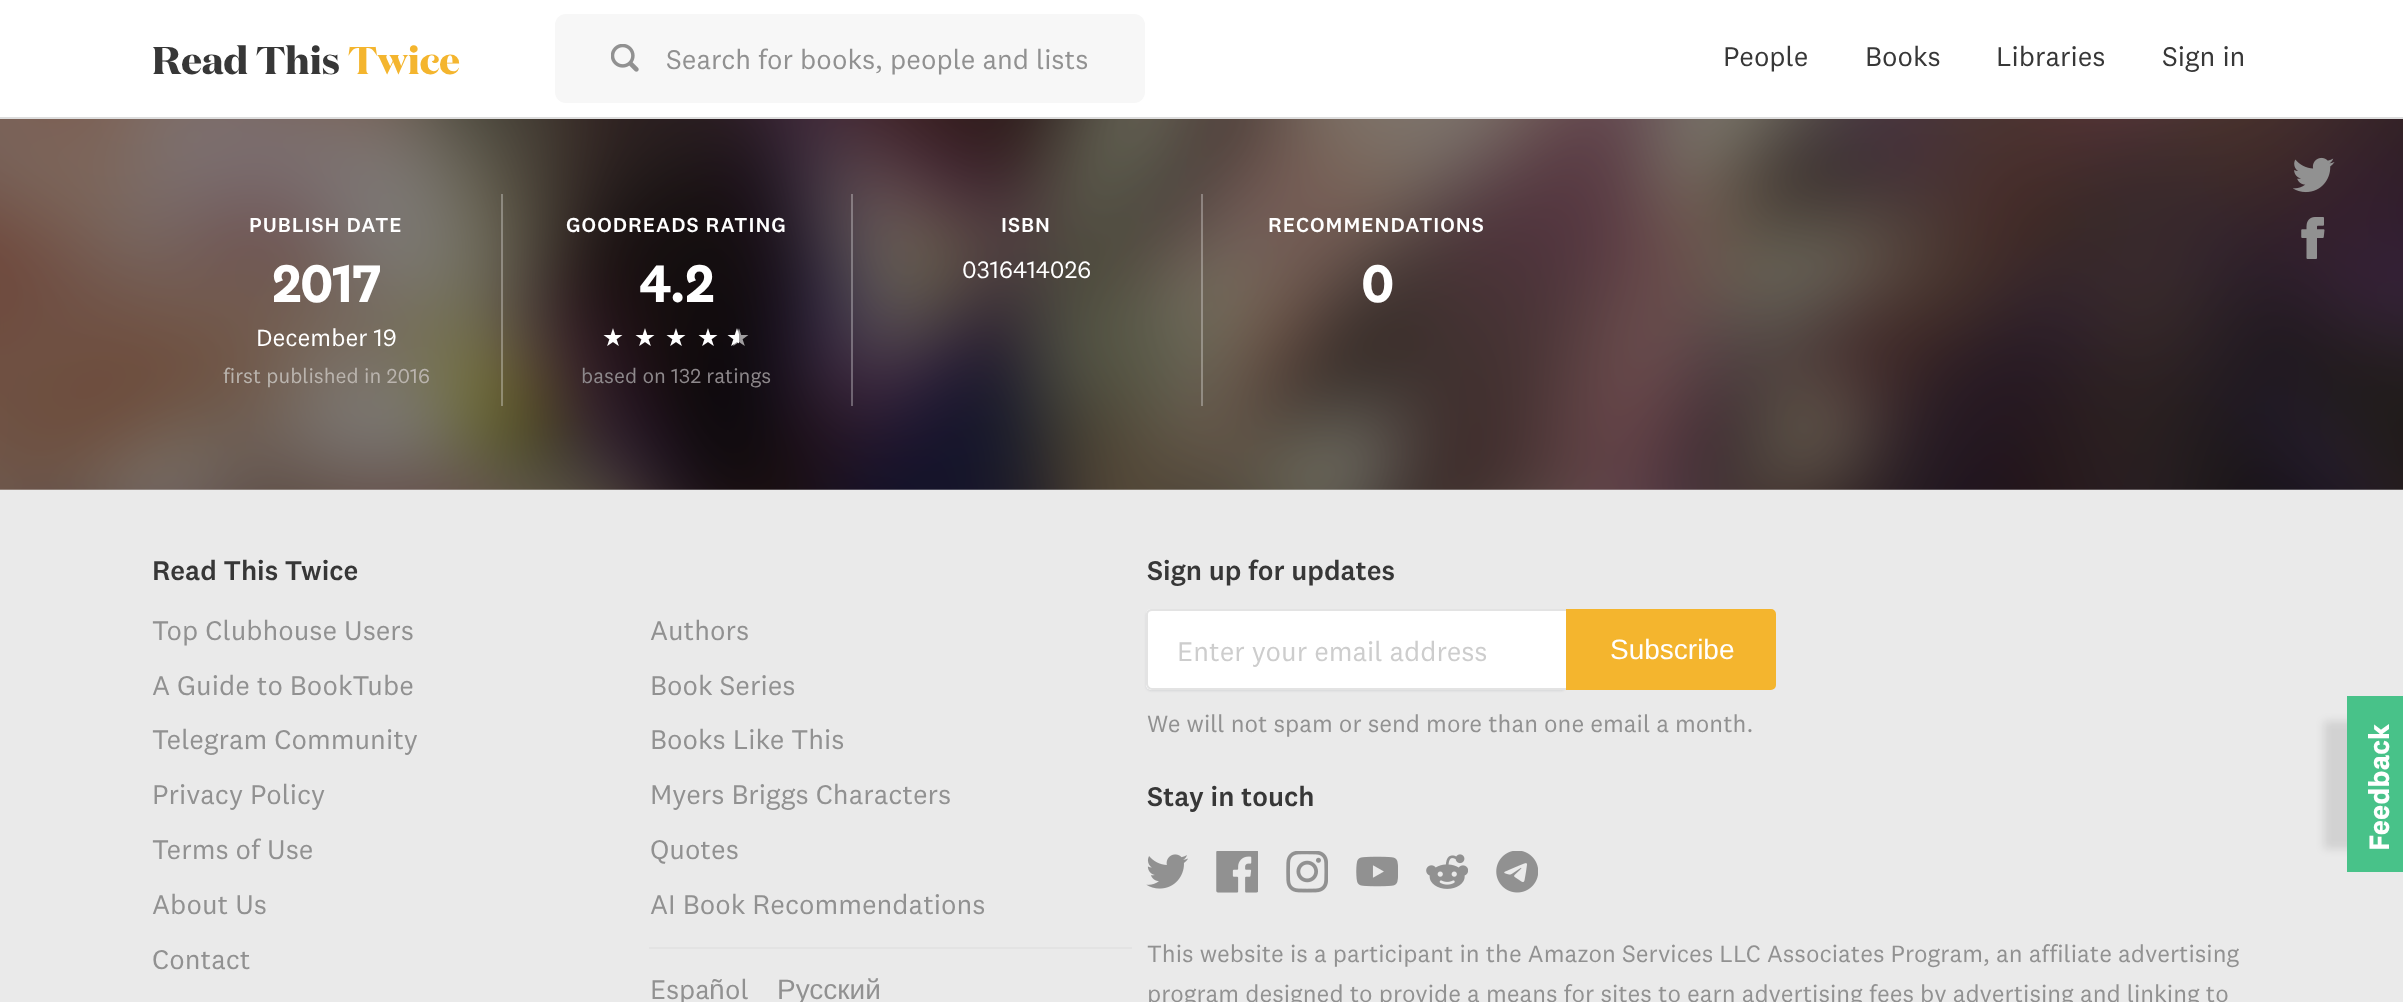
<!DOCTYPE html>
<meta charset="utf-8">
<style>body { margin: 0 } canvas { display: block }</style>
<canvas id="canvas" width="2403" height="1002"></canvas>
<script type="module">
  const canvas = document.getElementById("canvas");
  const ctx = canvas.getContext("2d");
  ctx.miterLimit = 4;
  ctx.fontKerning = "normal";
  async function loadImage(src) {
    const img = new Image();
    img.src = src;
    await img.decode();
    return img;
  }

  ctx.fillStyle = "#ffffff";
  ctx.fillRect(0, 0, 2403, 1002);
  ctx.fillStyle = "#dddddd";
  ctx.fillRect(0, 117, 2403, 2);
  ctx.font = "bold 38.5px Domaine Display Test";
  ctx.fillStyle = "#373737";
  ctx.fillText("Read This", 152, 74);
  ctx.fillStyle = "#f4b52e";
  ctx.fillText("Twice", 348, 74);
  ctx.fillStyle = "#f7f7f7";
  ctx.beginPath();
  ctx.roundRect(555, 14, 590, 89, 11);
  ctx.fill();
  ctx.drawImage(await loadImage("img1.png"), 611, 44, 28, 28);
  ctx.font = "28px 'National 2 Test'";
  ctx.fillStyle = "#919191";
  ctx.fillText("Search for books, people and lists", 666, 69);
  ctx.fillStyle = "#373737";
  ctx.fillText("People", 1723, 66);
  ctx.fillText("Books", 1865, 66);
  ctx.fillText("Libraries", 1996, 66);
  ctx.fillText("Sign in", 2162, 66);
  ctx.drawImage(await loadImage("img2.png"), 0, 119, 2403, 371);
  ctx.fillStyle = "rgba(255, 255, 255, 0.3)";
  ctx.fillRect(501, 194, 2, 212);
  ctx.letterSpacing = "1px";
  ctx.font = "500 21px 'National 2 Test'";
  ctx.fillStyle = "#ffffff";
  ctx.fillText("PUBLISH DATE", 249, 232);
  ctx.letterSpacing = "0px";
  ctx.font = "bold 52.5px 'National 2 Test'";
  ctx.fillText("2017", 272, 302);
  ctx.font = "24.5px 'National 2 Test'";
  ctx.fillText("December 19", 256, 346);
  ctx.font = "21px 'National 2 Test'";
  ctx.fillStyle = "#bab4ae";
  ctx.fillText("first published in 2016", 223, 383);
  ctx.fillStyle = "rgba(255, 255, 255, 0.3)";
  ctx.fillRect(851, 194, 2, 212);
  ctx.letterSpacing = "1px";
  ctx.font = "500 21px 'National 2 Test'";
  ctx.fillStyle = "#ffffff";
  ctx.fillText("GOODREADS RATING", 566, 232);
  ctx.letterSpacing = "0px";
  ctx.font = "bold 52.5px 'National 2 Test'";
  ctx.fillText("4.2", 639, 302);
  ctx.font = "24.5px DejaVu Sans";
  ctx.fillText("★", 602, 346);
  ctx.fillText("★", 634, 346);
  ctx.fillText("★", 665, 346);
  ctx.fillText("★", 697, 346);
  ctx.fillStyle = "#a09ea0";
  ctx.fillText("★", 728, 346);
  ctx.save();
  ctx.beginPath();
  ctx.rect(726, 319, 13, 40);
  ctx.clip();
  ctx.fillStyle = "#ffffff";
  ctx.fillText("★", 726, 346);
  ctx.restore();
  ctx.font = "21px 'National 2 Test'";
  ctx.fillStyle = "#8d888b";
  ctx.fillText("based on 132 ratings", 581, 383);
  ctx.fillStyle = "rgba(255, 255, 255, 0.3)";
  ctx.fillRect(1201, 194, 2, 212);
  ctx.letterSpacing = "1px";
  ctx.font = "500 21px 'National 2 Test'";
  ctx.fillStyle = "#ffffff";
  ctx.fillText("ISBN", 1001, 232);
  ctx.letterSpacing = "0px";
  ctx.font = "24.5px 'National 2 Test'";
  ctx.fillText("0316414026", 962, 278);
  ctx.letterSpacing = "1px";
  ctx.font = "500 21px 'National 2 Test'";
  ctx.fillText("RECOMMENDATIONS", 1268, 232);
  ctx.letterSpacing = "0px";
  ctx.font = "bold 52.5px 'National 2 Test'";
  ctx.fillText("0", 1361, 302);
  ctx.fillStyle = "#eaeaea";
  ctx.fillRect(0, 490, 2403, 512);
  ctx.drawImage(await loadImage("img3.png"), 2293, 157, 42, 36);
  ctx.drawImage(await loadImage("img4.png"), 2301, 217, 24, 42);
  ctx.font = "500 28px 'National 2 Test'";
  ctx.fillStyle = "#373737";
  ctx.fillText("Read This Twice", 152, 580);
  ctx.font = "28px 'National 2 Test'";
  ctx.fillStyle = "#919191";
  ctx.fillText("Top Clubhouse Users", 152, 640);
  ctx.fillText("A Guide to BookTube", 152, 695);
  ctx.fillText("Telegram Community", 152, 749);
  ctx.fillText("Privacy Policy", 152, 804);
  ctx.fillText("Terms of Use", 152, 859);
  ctx.fillText("About Us", 152, 914);
  ctx.fillText("Contact", 152, 969);
  ctx.fillText("Authors", 650, 640);
  ctx.fillText("Book Series", 650, 695);
  ctx.fillText("Books Like This", 650, 749);
  ctx.fillText("Myers Briggs Characters", 650, 804);
  ctx.fillText("Quotes", 650, 859);
  ctx.fillText("AI Book Recommendations", 650, 914);
  ctx.fillStyle = "#e3e3e3";
  ctx.fillRect(649, 947, 483, 2);
  ctx.fillStyle = "#919191";
  ctx.fillText("Espa", 650, 999);
  ctx.font = "28px Liberation Sans";
  ctx.fillText("ñ", 709, 999);
  ctx.font = "28px 'National 2 Test'";
  ctx.fillText("ol", 725, 999);
  ctx.font = "28px Liberation Sans";
  ctx.fillText("Русский", 777, 999);
  ctx.font = "500 28px 'National 2 Test'";
  ctx.fillStyle = "#373737";
  ctx.fillText("Sign up for updates", 1147, 580);
  ctx.fillStyle = "rgba(92, 102, 117, 0.15)";
  ctx.filter = "blur(1px)";
  ctx.beginPath();
  ctx.roundRect(1146, 611, 420, 80, 5);
  ctx.fill();
  ctx.filter = "none";
  ctx.fillStyle = "#ffffff";
  ctx.beginPath();
  ctx.roundRect(1146, 609, 420, 81, [5, 0, 0, 5]);
  ctx.fill();
  ctx.fillStyle = "#e3e3e3";
  ctx.beginPath();
  ctx.moveTo(1152, 609);
  ctx.lineTo(1566, 609);
  ctx.lineTo(1566, 690);
  ctx.lineTo(1152, 690);
  ctx.bezierCurveTo(1149, 690, 1146, 687, 1146, 684);
  ctx.lineTo(1146, 614);
  ctx.bezierCurveTo(1146, 611, 1149, 609, 1152, 609);
  ctx.closePath();
  ctx.moveTo(1152, 611);
  ctx.lineTo(1566, 611);
  ctx.lineTo(1566, 688);
  ctx.lineTo(1152, 688);
  ctx.bezierCurveTo(1150, 688, 1148, 686, 1148, 684);
  ctx.lineTo(1148, 614);
  ctx.bezierCurveTo(1148, 612, 1150, 611, 1152, 611);
  ctx.closePath();
  ctx.fill("evenodd");
  ctx.font = "28px 'National 2 Test'";
  ctx.fillStyle = "#cdcdcd";
  ctx.fillText("Enter your email address", 1177, 661);
  ctx.fillStyle = "#f4b52e";
  ctx.beginPath();
  ctx.roundRect(1567, 610, 208, 79, [0, 4, 4, 0]);
  ctx.fill();
  ctx.strokeStyle = "#f4b52e";
  ctx.lineWidth = 2;
  ctx.stroke();
  ctx.font = "28px Liberation Sans";
  ctx.fillStyle = "#ffffff";
  ctx.fillText("Subscribe", 1610, 659);
  ctx.font = "24.5px 'National 2 Test'";
  ctx.fillStyle = "#919191";
  ctx.fillText("We will not spam or send more than one email a month.", 1147, 732);
  ctx.font = "500 28px 'National 2 Test'";
  ctx.fillStyle = "#373737";
  ctx.fillText("Stay in touch", 1147, 806);
  ctx.drawImage(await loadImage("img5.png"), 1146, 854, 42, 35);
  ctx.drawImage(await loadImage("img6.png"), 1216, 851, 42, 42);
  ctx.drawImage(await loadImage("img7.png"), 1286, 851, 42, 42);
  ctx.drawImage(await loadImage("img8.png"), 1356, 856, 42, 31);
  ctx.drawImage(await loadImage("img9.png"), 1426, 854, 42, 35);
  ctx.drawImage(await loadImage("img10.png"), 1496, 851, 42, 42);
  ctx.font = "24.5px 'National 2 Test'";
  ctx.fillStyle = "#919191";
  ctx.fillText("This website is a participant in the Amazon Services LLC Associates Program, an affiliate advertising", 1147, 962);
  ctx.fillText("program designed to provide a means for sites to earn advertising fees by advertising and linking to", 1147, 1002);
  ctx.fillStyle = "rgba(0, 0, 0, 0.1)";
  ctx.filter = "blur(4.5px)";
  ctx.beginPath();
  ctx.rect(2324, 721, 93, 128);
  ctx.fill();
  ctx.filter = "none";
  ctx.fillStyle = "#48c289";
  ctx.fillRect(2347, 696, 56, 176);
  ctx.letterSpacing = "0.5px";
  ctx.font = "bold 28px 'National 2 Test'";
  ctx.fillStyle = "#ffffff";
  ctx.save();
  ctx.translate(2389, 851);
  ctx.rotate(-90 * Math.PI / 180);
  ctx.fillText("Feedback", 0, 0);
  ctx.restore();
</script>
